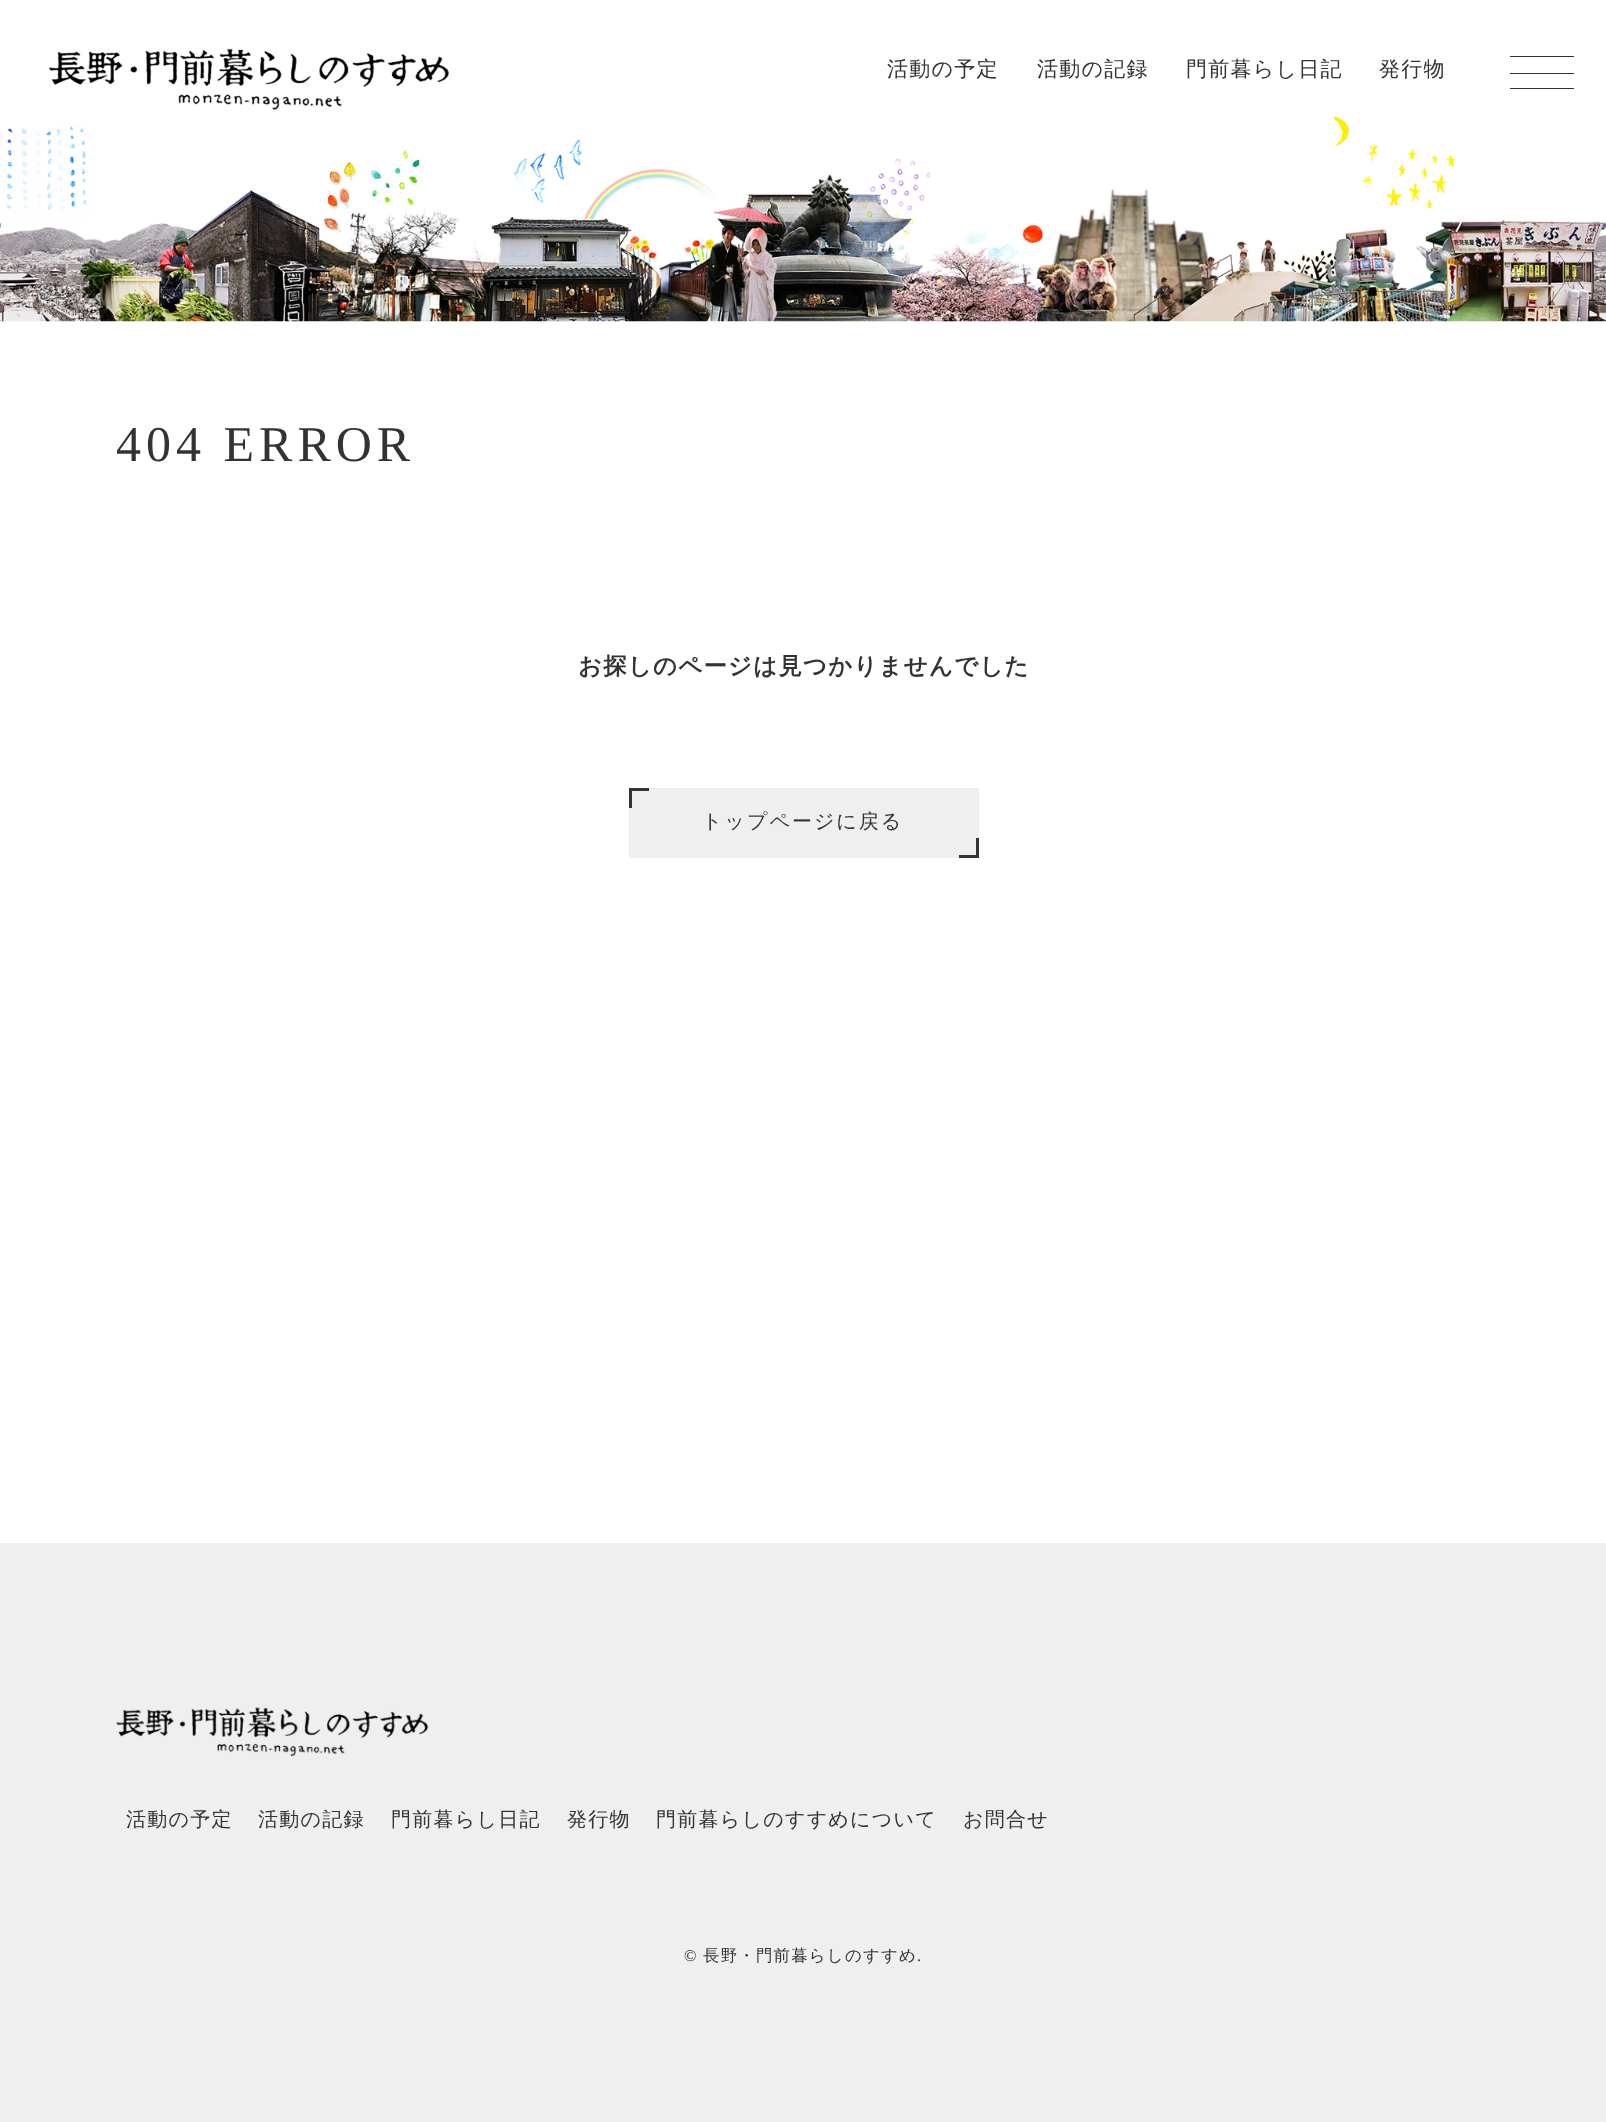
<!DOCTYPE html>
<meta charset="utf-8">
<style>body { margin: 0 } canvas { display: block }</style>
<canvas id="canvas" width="1606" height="2122"></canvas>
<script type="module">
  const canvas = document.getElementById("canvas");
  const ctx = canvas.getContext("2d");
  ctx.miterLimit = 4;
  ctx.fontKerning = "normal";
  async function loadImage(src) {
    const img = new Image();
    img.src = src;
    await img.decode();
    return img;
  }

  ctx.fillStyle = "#ffffff";
  ctx.fillRect(0, 0, 1606, 2122);
  ctx.drawImage(await loadImage("img1.png"), 0, 114, 1606, 208);
  ctx.drawImage(await loadImage("img2.png"), 48, 48, 402, 62);
  ctx.letterSpacing = "1.25px";
  ctx.font = "500 21px WenQuanYi Zen Hei";
  ctx.fillStyle = "#333333";
  ctx.fillText("活動の予定", 887, 76);
  ctx.fillText("活動の記録", 1037, 76);
  ctx.fillText("門前暮らし日記", 1186, 76);
  ctx.fillText("発行物", 1379, 76);
  ctx.letterSpacing = "5px";
  ctx.font = "50px Liberation Serif";
  ctx.fillText("404 ERROR", 116, 461);
  ctx.letterSpacing = "1.25px";
  ctx.font = "bold 23.4px WenQuanYi Zen Hei";
  ctx.fillText("お探しのページは見つかりませんでした", 578, 674);
  ctx.fillStyle = "#efefef";
  ctx.fillRect(629, 788, 350, 70);
  ctx.fillStyle = "#333333";
  ctx.fillRect(629, 788, 20, 3);
  ctx.fillRect(629, 788, 3, 20);
  ctx.letterSpacing = "2px";
  ctx.font = "500 20px WenQuanYi Zen Hei";
  ctx.fillText("トップページに戻る", 702, 828);
  ctx.fillRect(976, 838, 3, 20);
  ctx.fillRect(959, 855, 20, 3);
  ctx.fillStyle = "#efefef";
  ctx.fillRect(0, 1543, 1606, 579);
  ctx.drawImage(await loadImage("img3.png"), 116, 1707, 313, 50);
  ctx.letterSpacing = "1.25px";
  ctx.fillStyle = "#333333";
  ctx.fillText("活動の予定", 126, 1826);
  ctx.fillText("活動の記録", 258, 1826);
  ctx.fillText("門前暮らし日記", 391, 1826);
  ctx.fillText("発行物", 567, 1826);
  ctx.fillText("門前暮らしのすすめについて", 656, 1826);
  ctx.fillText("お問合せ", 963, 1826);
  ctx.font = "16.4px Liberation Serif";
  ctx.fillText("©", 684, 1961);
  ctx.font = "500 16.4px WenQuanYi Zen Hei";
  ctx.fillText("長野・門前暮らしのすすめ", 703, 1961);
  ctx.font = "16.4px Liberation Serif";
  ctx.fillText(".", 917, 1961);
  ctx.fillRect(1510, 56, 64, 1);
  ctx.fillRect(1510, 73, 64, 1);
  ctx.fillRect(1510, 88, 64, 1);
</script>
